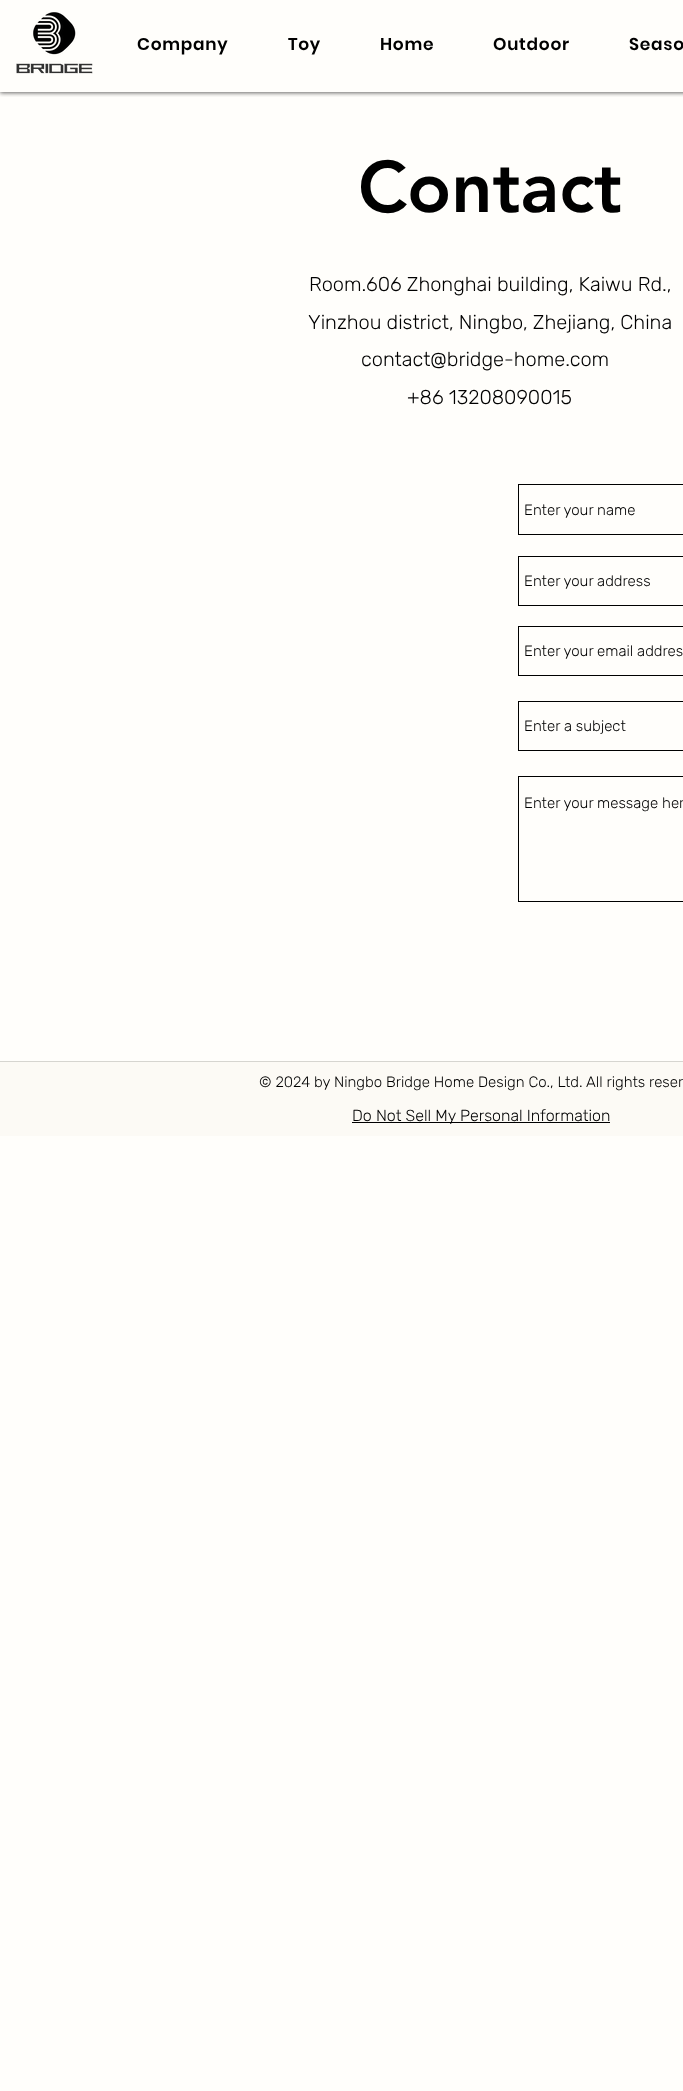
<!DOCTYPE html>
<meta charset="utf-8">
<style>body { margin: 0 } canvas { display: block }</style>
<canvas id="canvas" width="683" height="2091"></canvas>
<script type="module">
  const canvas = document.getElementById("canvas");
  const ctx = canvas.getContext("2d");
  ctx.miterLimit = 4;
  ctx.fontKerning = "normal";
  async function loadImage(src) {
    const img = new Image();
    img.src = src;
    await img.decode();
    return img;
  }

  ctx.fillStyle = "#fffefb";
  ctx.fillRect(0, 0, 683, 2091);
  ctx.save();
  ctx.beginPath();
  ctx.rect(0, 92, 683, 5);
  ctx.clip();
  ctx.fillStyle = "rgba(0, 0, 0, 0.6)";
  ctx.filter = "blur(2px)";
  ctx.beginPath();
  ctx.rect(0, 1, 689, 92);
  ctx.fill();
  ctx.filter = "none";
  ctx.restore();
  ctx.drawImage(await loadImage("img1.png"), 16, 12, 77, 62);
  ctx.letterSpacing = "0.75px";
  ctx.font = "600 17px Poppins";
  ctx.fillStyle = "#000000";
  ctx.fillText("Company", 137, 50);
  ctx.fillText("Toy", 288, 50);
  ctx.fillText("Home", 380, 50);
  ctx.fillText("Outdoor", 493, 50);
  ctx.fillText("Seaso", 629, 50);
  ctx.letterSpacing = "0px";
  ctx.font = "900 72px 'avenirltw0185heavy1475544'";
  ctx.fillText("Contact", 358, 212);
  ctx.font = "300 20px Rubik";
  ctx.fillText("Room.606 Zhonghai building, Kaiwu Rd.,", 309, 291);
  ctx.fillText("Yinzhou district, Ningbo, Zhejiang, China", 308, 329);
  ctx.fillText("contact@bridge-home.com", 361, 366);
  ctx.fillText("+86 13208090015", 407, 404);
  ctx.strokeStyle = "#000000";
  ctx.strokeRect(518.5, 484.5, 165, 50);
  ctx.font = "300 15px Rubik";
  ctx.fillText("Enter your name", 524, 515);
  ctx.strokeRect(518.5, 556.5, 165, 49);
  ctx.fillText("Enter your address", 524, 586);
  ctx.strokeRect(518.5, 626.5, 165, 49);
  ctx.fillText("Enter your email addres", 524, 656);
  ctx.strokeRect(518.5, 701.5, 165, 49);
  ctx.fillText("Enter a subject", 524, 731);
  ctx.strokeRect(518.5, 776.5, 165, 125);
  ctx.fillText("Enter your message her", 524, 808);
  ctx.fillStyle = "#fcfaf5";
  ctx.fillRect(0, 1062, 683, 74);
  ctx.fillStyle = "#d6d5d0";
  ctx.fillRect(0, 1061, 683, 1);
  ctx.fillStyle = "#000000";
  ctx.fillText("© 2024 by Ningbo Bridge Home Design Co., Ltd. All rights reser", 259, 1087);
  ctx.fillRect(352, 1122, 258, 1);
  ctx.font = "300 16px Rubik";
  ctx.fillText("Do Not Sell My Personal Information", 352, 1121);
</script>
